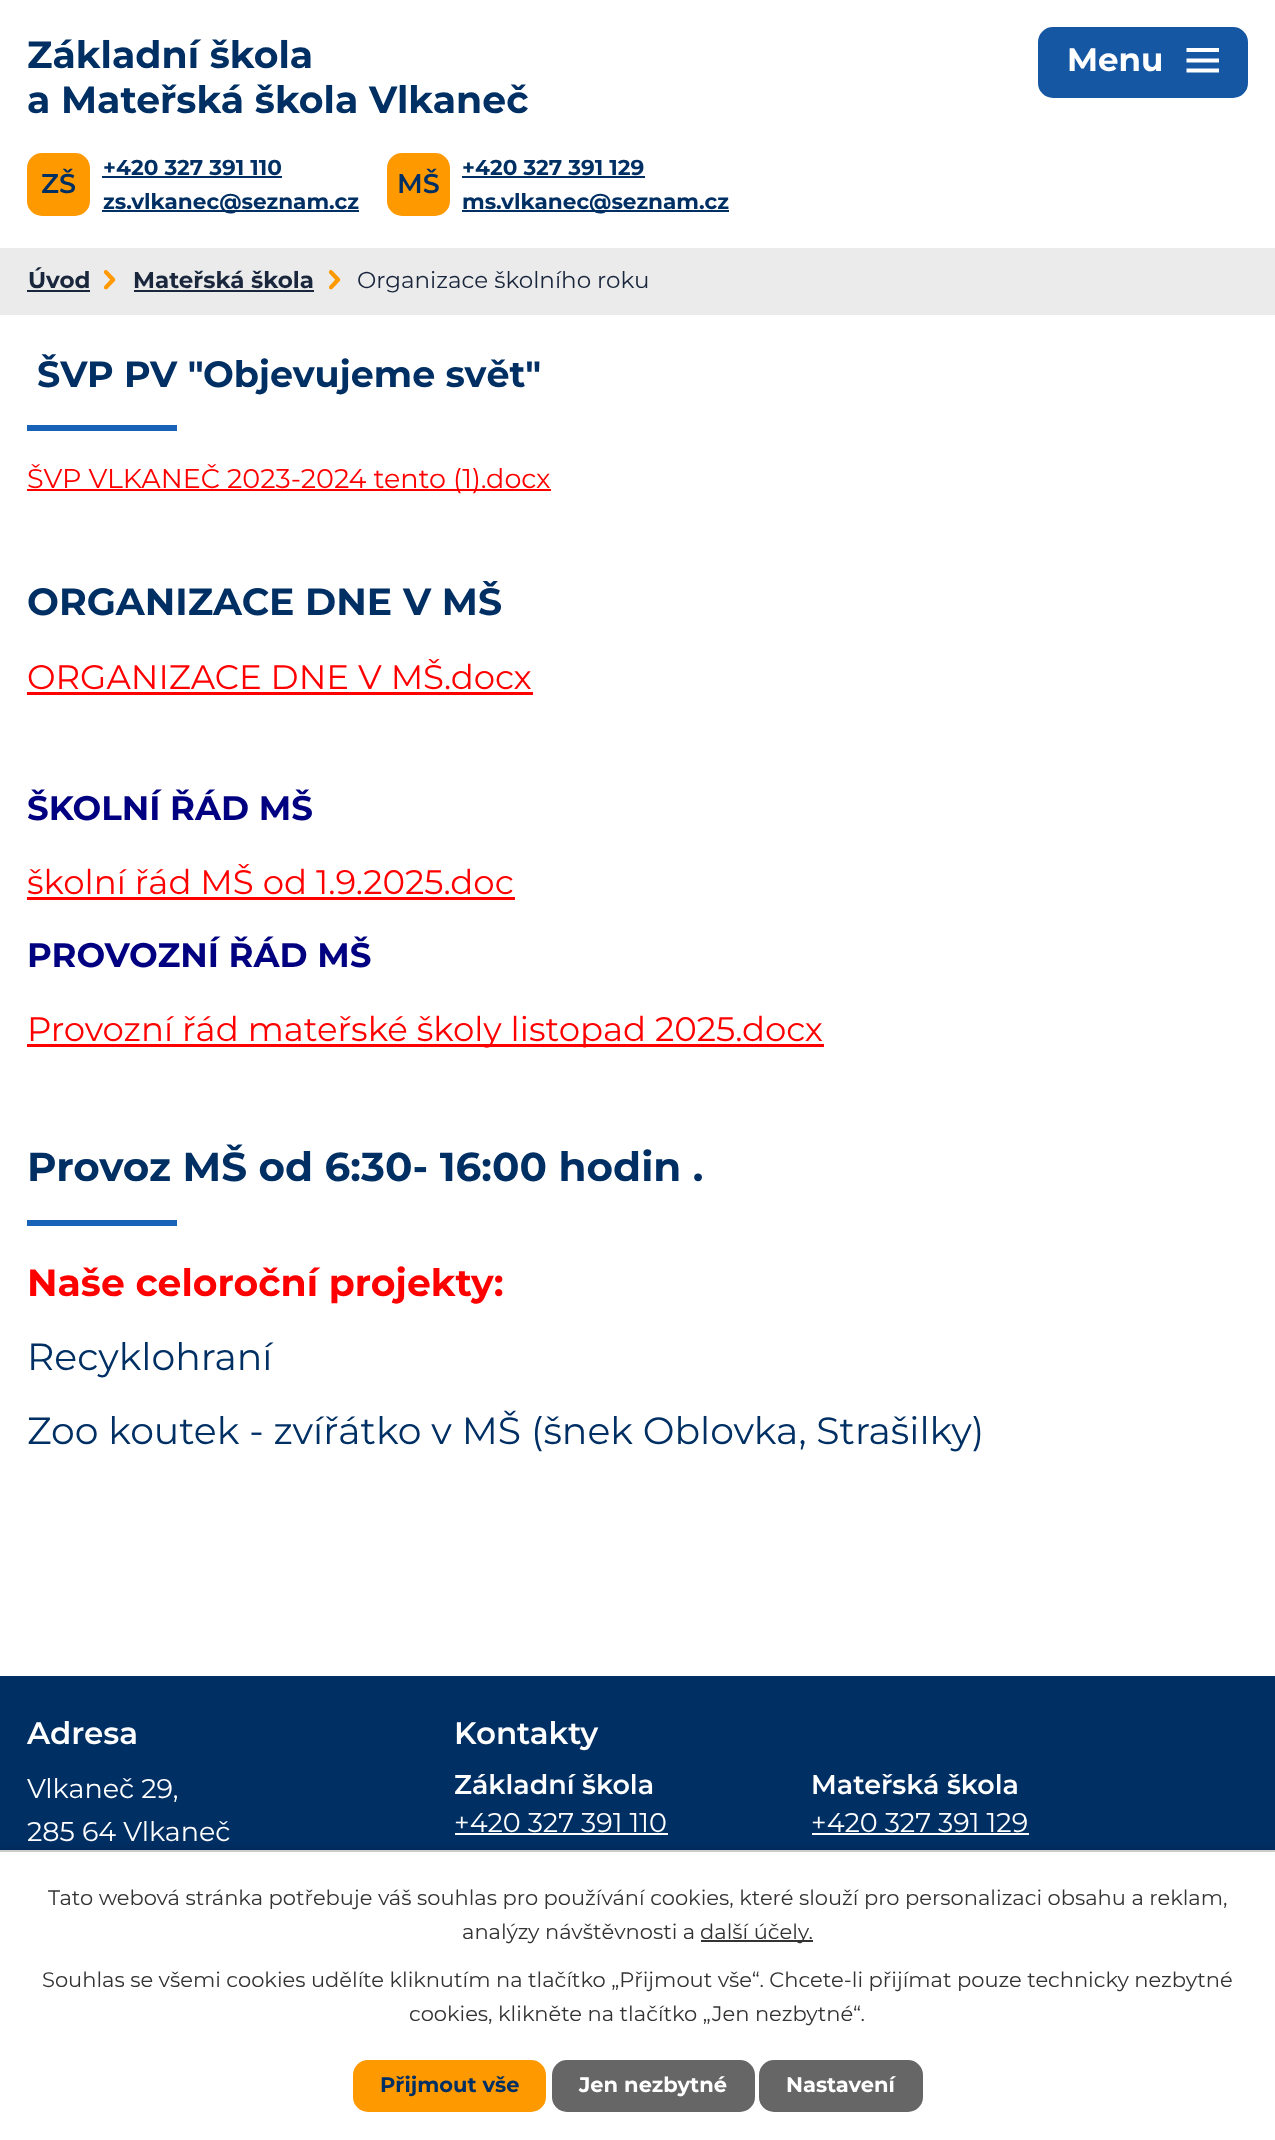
<!DOCTYPE html>
<meta charset="utf-8">
<style>body { margin: 0 } canvas { display: block }</style>
<canvas id="canvas" width="1275" height="2140"></canvas>
<script type="module">
  const canvas = document.getElementById("canvas");
  const ctx = canvas.getContext("2d");
  ctx.miterLimit = 4;
  ctx.fontKerning = "normal";
  async function loadImage(src) {
    const img = new Image();
    img.src = src;
    await img.decode();
    return img;
  }

  ctx.fillStyle = "#ffffff";
  ctx.fillRect(0, 0, 1275, 2140);
  ctx.font = "bold 37.8px Montserrat";
  ctx.fillStyle = "#002f64";
  ctx.fillText("Základní škola", 27, 68);
  ctx.fillText("a Mateřská škola Vlkaneč", 27, 113);
  ctx.fillStyle = "#ff9900";
  ctx.beginPath();
  ctx.roundRect(27, 153, 63, 63, 15);
  ctx.fill();
  ctx.font = "600 27px Montserrat";
  ctx.fillStyle = "#002f64";
  ctx.fillText("ZŠ", 41, 193);
  ctx.font = "bold 21.6px Montserrat";
  ctx.fillText("+420 327 391 110", 103, 175);
  ctx.fillRect(102, 176, 180, 2);
  ctx.fillRect(102, 210, 257, 2);
  ctx.fillText("zs.vlkanec@seznam.cz", 103, 209);
  ctx.fillStyle = "#ff9900";
  ctx.beginPath();
  ctx.roundRect(387, 153, 63, 63, 15);
  ctx.fill();
  ctx.font = "600 27px Montserrat";
  ctx.fillStyle = "#002f64";
  ctx.fillText("MŠ", 397, 193);
  ctx.font = "bold 21.6px Montserrat";
  ctx.fillText("+420 327 391 129", 462, 175);
  ctx.fillRect(462, 176, 183, 2);
  ctx.fillRect(462, 210, 267, 2);
  ctx.fillText("ms.vlkanec@seznam.cz", 462, 209);
  ctx.fillStyle = "#1557a2";
  ctx.beginPath();
  ctx.roundRect(1039, 28, 208, 69, 14);
  ctx.fill();
  ctx.strokeStyle = "#1557a2";
  ctx.lineWidth = 2;
  ctx.stroke();
  ctx.font = "bold 32.5px Montserrat";
  ctx.fillStyle = "#ffffff";
  ctx.fillText("Menu", 1067, 71);
  ctx.beginPath();
  ctx.moveTo(1186.5, 72.5);
  ctx.lineTo(1186.5, 68.5);
  ctx.lineTo(1219, 68.5);
  ctx.lineTo(1219, 72.5);
  ctx.closePath();
  ctx.moveTo(1186.5, 48);
  ctx.lineTo(1219, 48);
  ctx.lineTo(1219, 52);
  ctx.lineTo(1186.5, 52);
  ctx.closePath();
  ctx.moveTo(1186.5, 62.5);
  ctx.lineTo(1186.5, 58.5);
  ctx.lineTo(1219, 58.5);
  ctx.lineTo(1219, 62.5);
  ctx.closePath();
  ctx.fill();
  ctx.fillStyle = "#ebebeb";
  ctx.fillRect(0, 248, 1275, 67);
  ctx.font = "bold 23px Montserrat";
  ctx.fillStyle = "#19263c";
  ctx.fillText("Úvod", 28, 288);
  ctx.fillRect(27, 290, 63, 2);
  ctx.drawImage(await loadImage("img1.png"), 104, 270, 12, 20);
  ctx.fillText("Mateřská škola", 133, 288);
  ctx.fillRect(134, 290, 180, 2);
  ctx.drawImage(await loadImage("img1.png"), 329, 270, 12, 20);
  ctx.font = "23px Montserrat";
  ctx.fillText("Organizace školního roku", 357, 288);
  ctx.font = "bold 36.5px Montserrat";
  ctx.fillStyle = "#002f64";
  ctx.fillText("ŠVP PV \"Objevujeme svět\"", 37, 387);
  ctx.fillStyle = "#1863b8";
  ctx.fillRect(27, 425, 150, 6);
  ctx.fillStyle = "#ff0000";
  ctx.fillRect(27, 489, 524, 2);
  ctx.font = "27px Montserrat";
  ctx.fillText("ŠVP VLKANEČ 2023-2024 tento (1).docx", 27, 488);
  ctx.font = "bold 37.8px Montserrat";
  ctx.fillStyle = "#002f64";
  ctx.fillText("ORGANIZACE DNE V MŠ", 27, 615);
  ctx.font = "34px Montserrat";
  ctx.fillStyle = "#ff0000";
  ctx.fillText("ORGANIZACE DNE V MŠ.docx", 27, 689);
  ctx.fillRect(27, 692, 506, 3);
  ctx.font = "bold 34px Montserrat";
  ctx.fillStyle = "#000080";
  ctx.fillText("ŠKOLNÍ ŘÁD MŠ", 27, 820);
  ctx.font = "34px Montserrat";
  ctx.fillStyle = "#ff0000";
  ctx.fillText("školní řád MŠ od 1.9.2025.doc", 27, 894);
  ctx.fillRect(27, 897, 488, 3);
  ctx.font = "bold 34px Montserrat";
  ctx.fillStyle = "#000080";
  ctx.fillText("PROVOZNÍ ŘÁD MŠ", 27, 967);
  ctx.fillStyle = "#ff0000";
  ctx.fillRect(27, 1044, 797, 3);
  ctx.font = "34px Montserrat";
  ctx.fillText("Provozní řád mateřské školy listopad 2025.docx", 27, 1041);
  ctx.font = "bold 40.5px Montserrat";
  ctx.fillStyle = "#002f64";
  ctx.fillText("Provoz MŠ od 6:30- 16:00 hodin .", 27, 1181);
  ctx.fillStyle = "#1863b8";
  ctx.fillRect(27, 1220, 150, 6);
  ctx.font = "bold 37.8px Montserrat";
  ctx.fillStyle = "#ff0000";
  ctx.fillText("Naše celoroční projekty:", 27, 1296);
  ctx.font = "37.8px Montserrat";
  ctx.fillStyle = "#002f64";
  ctx.fillText("Recyklohraní", 27, 1370);
  ctx.fillText("Zoo koutek - zvířátko v MŠ (šnek Oblovka, Strašilky)", 27, 1444);
  ctx.fillRect(0, 1676, 1275, 174);
  ctx.font = "600 31px Montserrat";
  ctx.fillStyle = "#ffffff";
  ctx.fillText("Adresa", 27, 1744);
  ctx.font = "27px Montserrat";
  ctx.fillText("Vlkaneč 29,", 27, 1798);
  ctx.fillText("285 64 Vlkaneč", 27, 1841);
  ctx.font = "600 31px Montserrat";
  ctx.fillText("Kontakty", 454, 1744);
  ctx.font = "600 27px Montserrat";
  ctx.fillText("Základní škola", 454, 1794);
  ctx.font = "27px Montserrat";
  ctx.fillText("+420 327 391 110", 454, 1832);
  ctx.fillRect(455, 1833, 213, 2);
  ctx.font = "600 27px Montserrat";
  ctx.fillText("Mateřská škola", 811, 1794);
  ctx.font = "27px Montserrat";
  ctx.fillText("+420 327 391 129", 811, 1832);
  ctx.fillRect(812, 1833, 217, 2);
  ctx.fillStyle = "rgba(0, 0, 0, 0.2)";
  ctx.filter = "blur(4px)";
  ctx.beginPath();
  ctx.rect(0, 1850, 1275, 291);
  ctx.fill();
  ctx.filter = "none";
  ctx.fillStyle = "#ffffff";
  ctx.fillRect(0, 1852, 1275, 288);
  ctx.fillStyle = "#cccccc";
  ctx.fillRect(0, 1850, 1275, 2);
  ctx.font = "21px Montserrat";
  ctx.fillStyle = "#333333";
  ctx.fillText("Tato webová stránka potřebuje váš souhlas pro používání cookies, které slouží pro personalizaci obsahu a reklam,", 48, 1905);
  ctx.fillText("analýzy návštěvnosti a", 462, 1939);
  ctx.fillRect(701, 1940, 112, 2);
  ctx.fillText("další účely.", 700, 1939);
  ctx.fillText("Souhlas se všemi cookies udělíte kliknutím na tlačítko „Přijmout vše“. Chcete-li přijímat pouze technicky nezbytné", 42, 1987);
  ctx.fillText("cookies, klikněte na tlačítko „Jen nezbytné“.", 409, 2021);
  ctx.fillStyle = "#ff9900";
  ctx.beginPath();
  ctx.roundRect(353, 2060, 193, 52, 15);
  ctx.fill();
  ctx.font = "bold 21px Montserrat";
  ctx.fillStyle = "#002f64";
  ctx.fillText("Přijmout vše", 380, 2092);
  ctx.fillStyle = "#666666";
  ctx.beginPath();
  ctx.roundRect(552, 2060, 203, 52, 15);
  ctx.fill();
  ctx.fillStyle = "#ffffff";
  ctx.fillText("Jen nezbytné", 579, 2092);
  ctx.fillStyle = "#666666";
  ctx.beginPath();
  ctx.roundRect(759, 2060, 164, 52, 15);
  ctx.fill();
  ctx.fillStyle = "#ffffff";
  ctx.fillText("Nastavení", 786, 2092);
</script>
